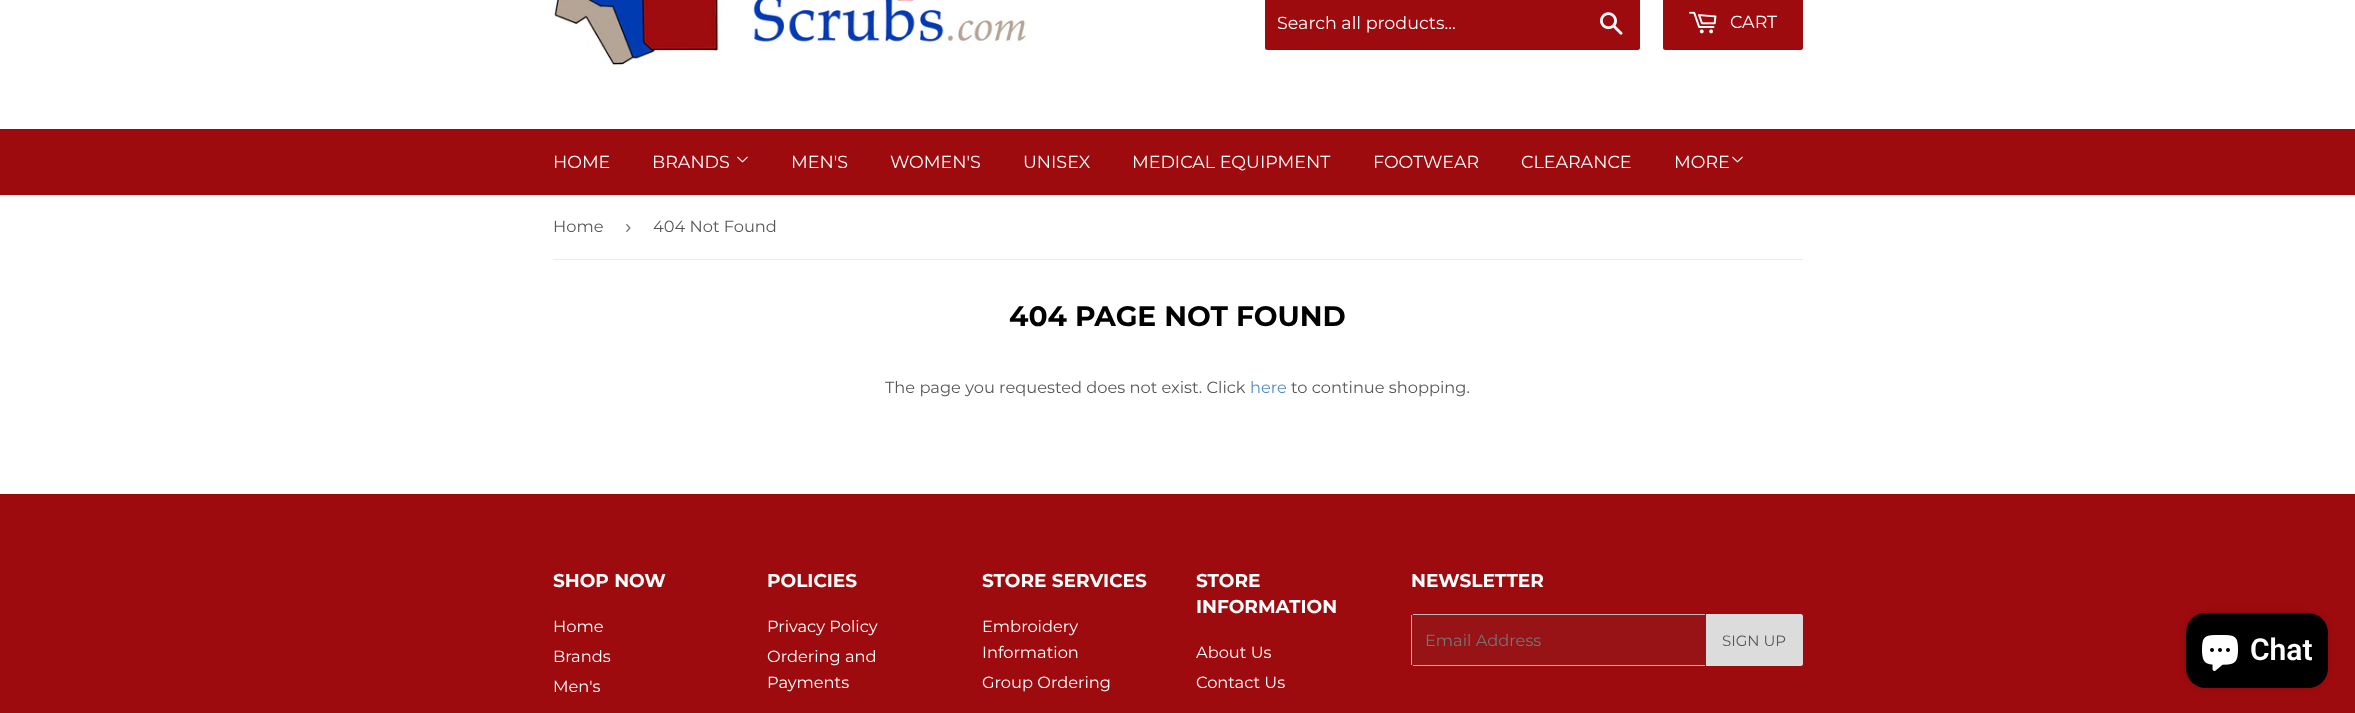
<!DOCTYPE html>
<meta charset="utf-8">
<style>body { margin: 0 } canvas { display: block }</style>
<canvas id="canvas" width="2355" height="713"></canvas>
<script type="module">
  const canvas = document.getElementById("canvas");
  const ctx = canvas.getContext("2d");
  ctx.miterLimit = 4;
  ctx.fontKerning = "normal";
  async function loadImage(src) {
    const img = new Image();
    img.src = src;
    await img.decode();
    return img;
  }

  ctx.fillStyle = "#ffffff";
  ctx.fillRect(0, 0, 2355, 713);
  ctx.drawImage(await loadImage("img1.png"), 552, 0, 475, 66);
  ctx.fillStyle = "#9e0b0f";
  ctx.beginPath();
  ctx.roundRect(1265, -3, 375, 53, 2.5);
  ctx.fill();
  ctx.font = "17.5px Montserrat";
  ctx.fillStyle = "#ffffff";
  ctx.fillText("Search all products...", 1277, 29);
  ctx.drawImage(await loadImage("img2.png"), 1600, 12, 23, 23);
  ctx.fillStyle = "#9e0b0f";
  ctx.beginPath();
  ctx.roundRect(1663, -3, 140, 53, 2.5);
  ctx.fill();
  ctx.drawImage(await loadImage("img3.png"), 1689, 11, 28, 23);
  ctx.fillStyle = "#ffffff";
  ctx.fillText("CART", 1730, 28);
  ctx.fillStyle = "#9e0b0f";
  ctx.fillRect(0, 129, 2355, 66);
  ctx.fillStyle = "#ffffff";
  ctx.fillText("HOME", 553, 168);
  ctx.fillText("BRANDS", 652, 168);
  ctx.drawImage(await loadImage("img4.png"), 737, 156, 11, 7);
  ctx.fillText("MEN'S", 791, 168);
  ctx.fillText("WOMEN'S", 890, 168);
  ctx.fillText("UNISEX", 1023, 168);
  ctx.fillText("MEDICAL EQUIPMENT", 1132, 168);
  ctx.fillText("FOOTWEAR", 1373, 168);
  ctx.fillText("CLEARANCE", 1521, 168);
  ctx.fillText("MORE", 1674, 168);
  ctx.drawImage(await loadImage("img4.png"), 1732, 156, 11, 7);
  ctx.fillStyle = "#ececec";
  ctx.fillRect(553, 259, 1250, 1);
  ctx.font = "16.25px Montserrat";
  ctx.fillStyle = "#585858";
  ctx.fillText("Home", 553, 232);
  ctx.font = "19px Liberation Sans";
  ctx.fillStyle = "#767676";
  ctx.fillText("›", 625, 233);
  ctx.font = "16.25px Montserrat";
  ctx.fillStyle = "#585858";
  ctx.fillText("404 Not Found", 653, 232);
  ctx.font = "bold 28.2px Montserrat";
  ctx.fillStyle = "#000000";
  ctx.fillText("404 PAGE NOT FOUND", 1009, 326);
  ctx.font = "16.25px Montserrat";
  ctx.fillStyle = "#585858";
  ctx.fillText("The page you requested does not exist. Click", 885, 393);
  ctx.fillStyle = "#528ec1";
  ctx.fillText("here", 1250, 393);
  ctx.fillStyle = "#585858";
  ctx.fillText("to continue shopping.", 1291, 393);
  ctx.fillStyle = "#9e0b0f";
  ctx.fillRect(0, 494, 2355, 219);
  ctx.font = "bold 18.5px Montserrat";
  ctx.fillStyle = "#ffffff";
  ctx.fillText("SHOP NOW", 553, 587);
  ctx.font = "16.25px Montserrat";
  ctx.fillText("Home", 553, 632);
  ctx.fillText("Brands", 553, 662);
  ctx.fillText("Men's", 553, 692);
  ctx.font = "bold 18.5px Montserrat";
  ctx.fillText("POLICIES", 767, 587);
  ctx.font = "16.25px Montserrat";
  ctx.fillText("Privacy Policy", 767, 632);
  ctx.fillText("Ordering and", 767, 662);
  ctx.fillText("Payments", 767, 688);
  ctx.font = "bold 18.5px Montserrat";
  ctx.fillText("STORE SERVICES", 982, 587);
  ctx.font = "16.25px Montserrat";
  ctx.fillText("Embroidery", 982, 632);
  ctx.fillText("Information", 982, 658);
  ctx.fillText("Group Ordering", 982, 688);
  ctx.font = "bold 18.5px Montserrat";
  ctx.fillText("STORE", 1196, 587);
  ctx.fillText("INFORMATION", 1196, 613);
  ctx.font = "16.25px Montserrat";
  ctx.fillText("About Us", 1196, 658);
  ctx.fillText("Contact Us", 1196, 688);
  ctx.font = "bold 18.5px Montserrat";
  ctx.fillText("NEWSLETTER", 1411, 587);
  ctx.fillStyle = "#971316";
  ctx.beginPath();
  ctx.roundRect(1411, 614, 295, 52, 2.5);
  ctx.fill();
  ctx.fillStyle = "#b9b9b9";
  ctx.fillRect(1413, 614, 292, 1);
  ctx.fillRect(1413, 665, 292, 1);
  ctx.fillRect(1411, 615, 1, 50);
  ctx.font = "16.25px Montserrat";
  ctx.fillStyle = "#767676";
  ctx.fillText("Email Address", 1425, 646);
  ctx.fillStyle = "#dcdcdc";
  ctx.beginPath();
  ctx.roundRect(1706, 614, 97, 52, [0, 2.5, 2.5, 0]);
  ctx.fill();
  ctx.font = "15px Montserrat";
  ctx.fillStyle = "#585858";
  ctx.fillText("SIGN UP", 1722, 646);
  ctx.fillStyle = "rgba(0, 0, 0, 0.15)";
  ctx.filter = "blur(3px)";
  ctx.beginPath();
  ctx.roundRect(2186, 613, 142, 75, 20);
  ctx.fill();
  ctx.filter = "none";
  ctx.fillStyle = "#000000";
  ctx.beginPath();
  ctx.roundRect(2186, 613, 142, 75, 20);
  ctx.fill();
  ctx.drawImage(await loadImage("img5.png"), 2202, 635, 36, 36);
  ctx.font = "600 30px Roboto";
  ctx.fillStyle = "#ffffff";
  ctx.fillText("Chat", 2250, 660);
</script>
